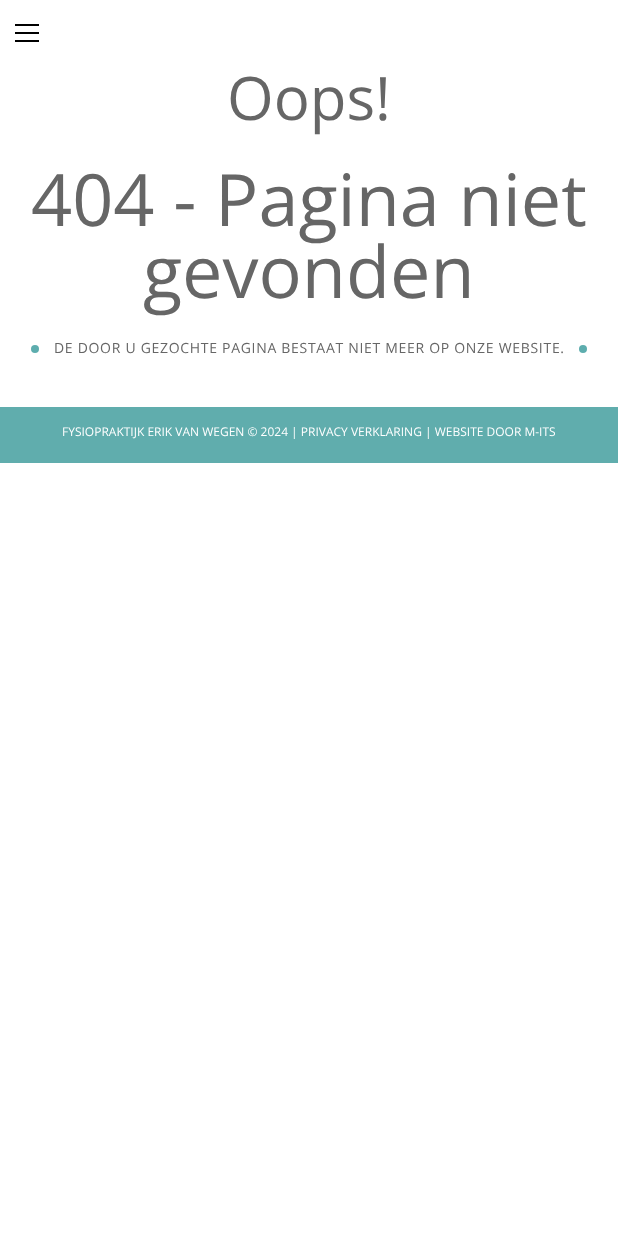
<!DOCTYPE html>
<meta charset="utf-8">
<style>body { margin: 0 } canvas { display: block }</style>
<canvas id="canvas" width="618" height="1236"></canvas>
<script type="module">
  const canvas = document.getElementById("canvas");
  const ctx = canvas.getContext("2d");
  ctx.miterLimit = 4;
  ctx.fontKerning = "normal";

  ctx.fillStyle = "#ffffff";
  ctx.fillRect(0, 0, 618, 1236);
  ctx.fillStyle = "#000000";
  ctx.fillRect(15, 24, 24, 2);
  ctx.fillRect(15, 32, 24, 2);
  ctx.fillRect(15, 40, 24, 2);
  ctx.font = "60px Open Sans";
  ctx.fillStyle = "#666666";
  ctx.fillText("Oops!", 227, 120);
  ctx.font = "72px Open Sans";
  ctx.fillText("404 - Pagina niet", 31, 226);
  ctx.fillText("gevonden", 143, 298);
  ctx.fillStyle = "#5dadae";
  ctx.beginPath();
  ctx.arc(35, 349, 4, 0, Math.PI * 2);
  ctx.fill();
  ctx.letterSpacing = "0.7px";
  ctx.font = "14px Open Sans";
  ctx.fillStyle = "#666666";
  ctx.fillText("DE DOOR U GEZOCHTE PAGINA BESTAAT NIET MEER OP ONZE WEBSITE.", 54, 353);
  ctx.fillStyle = "#5dadae";
  ctx.beginPath();
  ctx.arc(583, 349, 4, 0, Math.PI * 2);
  ctx.fill();
  ctx.fillStyle = "#60adad";
  ctx.fillRect(0, 407, 618, 56);
  ctx.letterSpacing = "0px";
  ctx.font = "12px Open Sans";
  ctx.fillStyle = "#ffffff";
  ctx.fillText("FYSIOPRAKTIJK ERIK VAN WEGEN © 2024 | PRIVACY VERKLARING | WEBSITE DOOR M-ITS", 62, 436);
</script>
